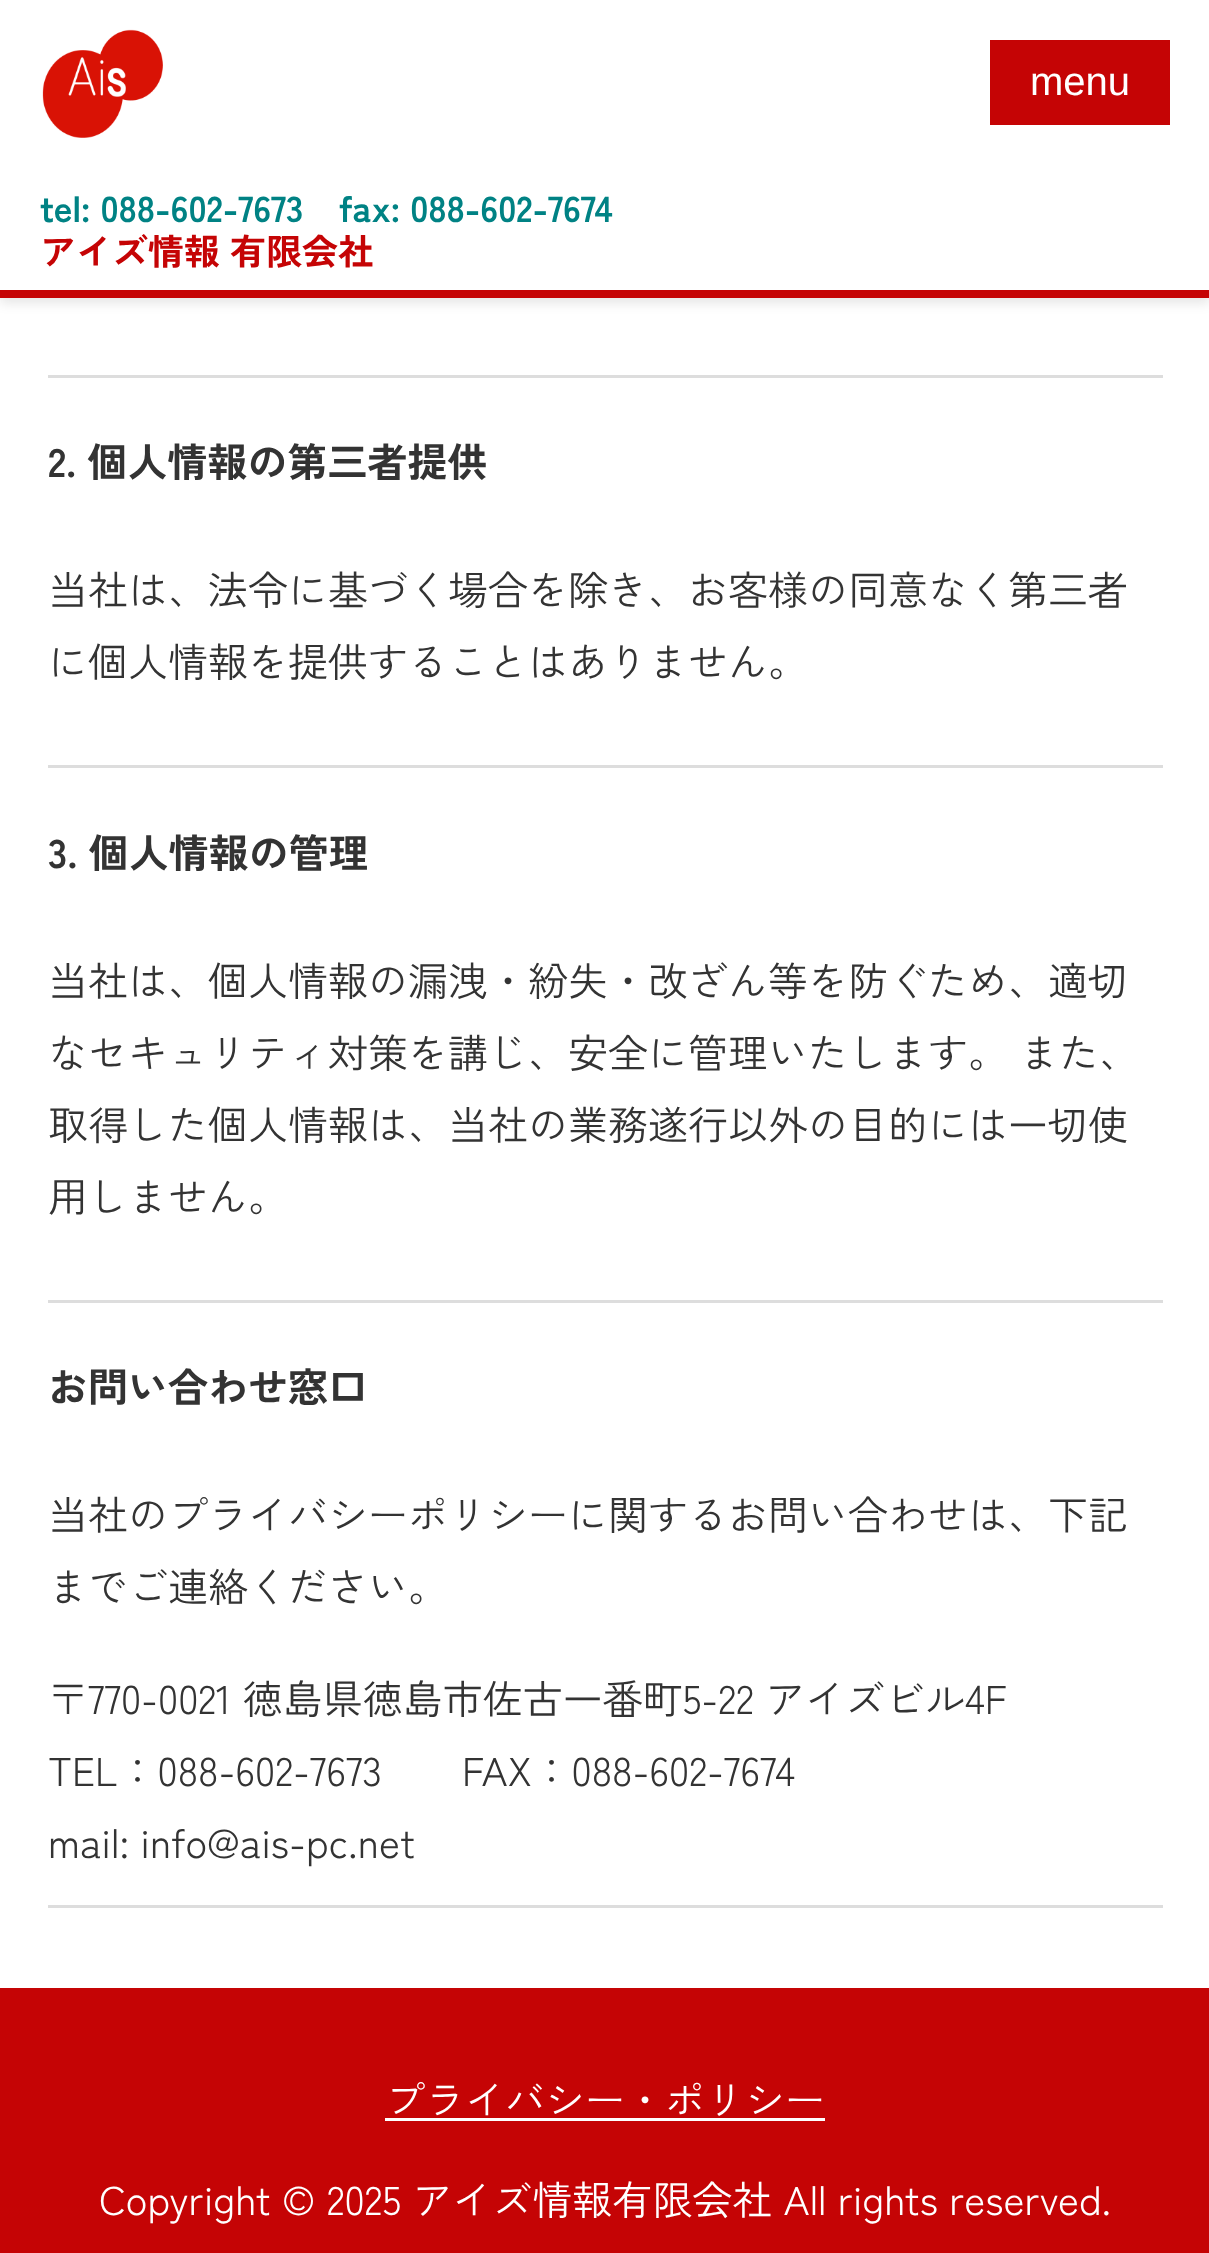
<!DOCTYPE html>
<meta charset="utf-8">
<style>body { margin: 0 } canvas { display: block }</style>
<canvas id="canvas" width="1209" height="2253"></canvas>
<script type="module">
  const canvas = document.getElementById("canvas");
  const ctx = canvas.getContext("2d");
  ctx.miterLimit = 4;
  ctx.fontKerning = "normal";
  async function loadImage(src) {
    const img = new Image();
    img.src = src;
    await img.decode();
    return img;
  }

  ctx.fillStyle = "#ffffff";
  ctx.fillRect(0, 0, 1209, 2253);
  ctx.fillStyle = "rgba(0, 0, 0, 0.1)";
  ctx.filter = "blur(6px)";
  ctx.beginPath();
  ctx.rect(0, 5, 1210, 298);
  ctx.fill();
  ctx.filter = "none";
  ctx.fillStyle = "#ffffff";
  ctx.fillRect(0, 0, 1209, 290);
  ctx.fillStyle = "#c50405";
  ctx.fillRect(0, 290, 1209, 8);
  ctx.drawImage(await loadImage("img1.png"), 42, 29, 121, 109);
  ctx.fillRect(990, 40, 180, 85);
  ctx.font = "40px Liberation Sans";
  ctx.fillStyle = "#ffffff";
  ctx.fillText("menu", 1030, 95);
  ctx.font = "bold 36px Zen Kaku Gothic New";
  ctx.fillStyle = "#008284";
  ctx.fillText("tel: 088-602-7673", 40, 222);
  ctx.fillText("fax: 088-602-7674", 339, 222);
  ctx.fillStyle = "#c50405";
  ctx.fillText("アイズ情報 有限会社", 40, 265);
  ctx.fillStyle = "#dddddd";
  ctx.fillRect(48, 375, 1115, 3);
  ctx.fillRect(48, 765, 1115, 3);
  ctx.font = "bold 40px Zen Kaku Gothic New";
  ctx.fillStyle = "#333333";
  ctx.fillText("2. 個人情報の第三者提供", 48, 477);
  ctx.font = "40px Zen Kaku Gothic New";
  ctx.fillText("当社は、法令に基づく場合を除き、お客様の同意なく第三者", 48, 605);
  ctx.fillText("に個人情報を提供することはありません。", 48, 677);
  ctx.fillStyle = "#dddddd";
  ctx.fillRect(48, 1300, 1115, 3);
  ctx.font = "bold 40px Zen Kaku Gothic New";
  ctx.fillStyle = "#333333";
  ctx.fillText("3. 個人情報の管理", 48, 868);
  ctx.font = "40px Zen Kaku Gothic New";
  ctx.fillText("当社は、個人情報の漏洩・紛失・改ざん等を防ぐため、適切", 48, 996);
  ctx.fillText("なセキュリティ対策を講じ、安全に管理いたします。 また、", 48, 1068);
  ctx.fillText("取得した個人情報は、当社の業務遂行以外の目的には一切使", 48, 1140);
  ctx.fillText("用しません。", 48, 1212);
  ctx.fillStyle = "#dddddd";
  ctx.fillRect(48, 1905, 1115, 3);
  ctx.font = "bold 40px Zen Kaku Gothic New";
  ctx.fillStyle = "#333333";
  ctx.fillText("お問い合わせ窓口", 48, 1402);
  ctx.font = "40px Zen Kaku Gothic New";
  ctx.fillText("当社のプライバシーポリシーに関するお問い合わせは、下記", 48, 1530);
  ctx.fillText("までご連絡ください。", 48, 1602);
  ctx.fillText("〒770-0021 徳島県徳島市佐古一番町5-22 アイズビル4F", 48, 1714);
  ctx.fillText("TEL：088-602-7673　　FAX：088-602-7674", 48, 1786);
  ctx.fillText("mail: info@ais-pc.net", 48, 1858);
  ctx.fillStyle = "#c50405";
  ctx.fillRect(0, 1988, 1209, 265);
  ctx.fillStyle = "#ffffff";
  ctx.fillText("プライバシー・ポリシー", 385, 2115);
  ctx.fillRect(385, 2118, 440, 3);
  ctx.fillText("Copyright © 2025 アイズ情報有限会社 All rights reserved.", 99, 2215);
</script>
